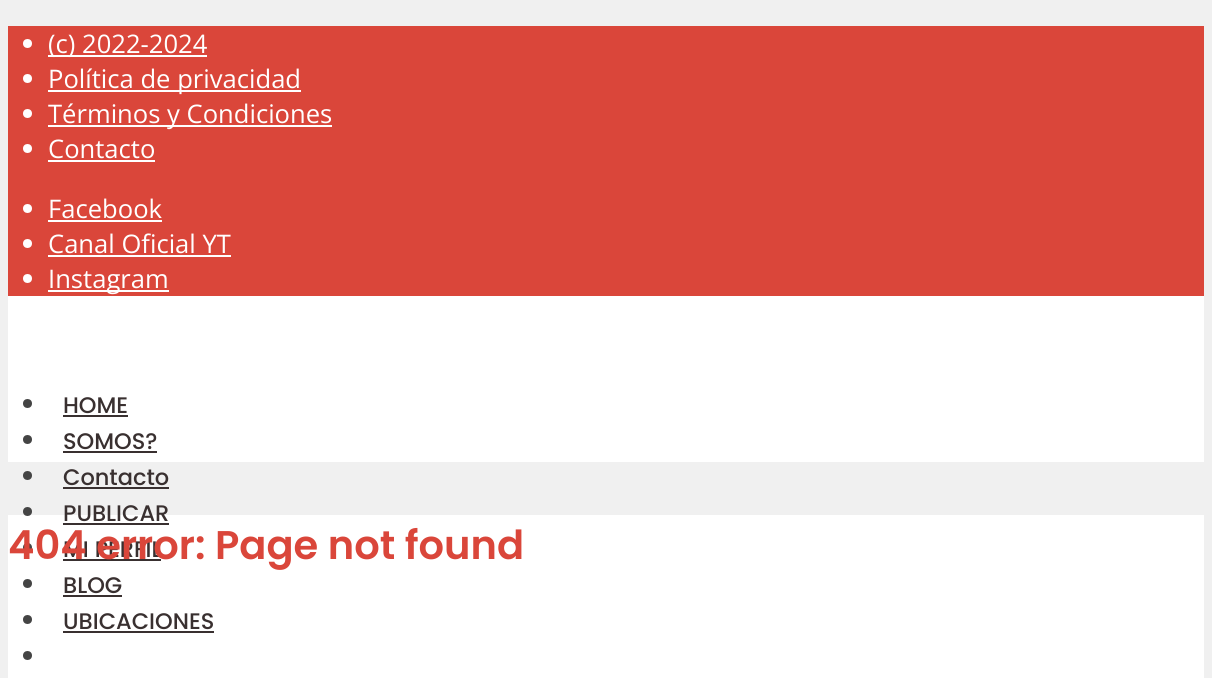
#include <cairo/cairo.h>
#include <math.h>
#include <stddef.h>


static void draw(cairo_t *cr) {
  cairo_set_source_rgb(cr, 240 / 255.0, 240 / 255.0, 240 / 255.0);
  cairo_paint(cr);
  cairo_set_source_rgb(cr, 1, 1, 1);
  cairo_rectangle(cr, 8, 296, 1196, 166);
  cairo_fill(cr);
  cairo_set_source_rgb(cr, 218 / 255.0, 70 / 255.0, 58 / 255.0);
  cairo_rectangle(cr, 8, 26, 1196, 270);
  cairo_fill(cr);
  cairo_set_source_rgb(cr, 1, 1, 1);
  cairo_arc(cr, 27.5, 43.5, 4.5, 0, 2 * M_PI);
  cairo_fill(cr);
  cairo_rectangle(cr, 48, 55, 159, 2);
  cairo_fill(cr);
  cairo_arc(cr, 27.5, 78.5, 4.5, 0, 2 * M_PI);
  cairo_fill(cr);
  cairo_rectangle(cr, 48, 90, 253, 2);
  cairo_fill(cr);
  cairo_arc(cr, 27.5, 113.5, 4.5, 0, 2 * M_PI);
  cairo_fill(cr);
  cairo_rectangle(cr, 48, 125, 284, 2);
  cairo_fill(cr);
  cairo_arc(cr, 27.5, 148.5, 4.5, 0, 2 * M_PI);
  cairo_fill(cr);
  cairo_rectangle(cr, 48, 160, 107, 2);
  cairo_fill(cr);
  cairo_arc(cr, 27.5, 208.5, 4.5, 0, 2 * M_PI);
  cairo_fill(cr);
  cairo_rectangle(cr, 48, 220, 114, 2);
  cairo_fill(cr);
  cairo_arc(cr, 27.5, 243.5, 4.5, 0, 2 * M_PI);
  cairo_fill(cr);
  cairo_rectangle(cr, 48, 255, 183, 2);
  cairo_fill(cr);
  cairo_arc(cr, 27.5, 278.5, 4.5, 0, 2 * M_PI);
  cairo_fill(cr);
  cairo_rectangle(cr, 48, 290, 121, 2);
  cairo_fill(cr);
  cairo_set_source_rgb(cr, 68 / 255.0, 68 / 255.0, 68 / 255.0);
  cairo_arc(cr, 27.5, 403.5, 4.5, 0, 2 * M_PI);
  cairo_fill(cr);
  cairo_set_source_rgb(cr, 57 / 255.0, 48 / 255.0, 48 / 255.0);
  cairo_rectangle(cr, 63, 415, 65, 2);
  cairo_fill(cr);
  cairo_set_source_rgb(cr, 68 / 255.0, 68 / 255.0, 68 / 255.0);
  cairo_arc(cr, 27.5, 439.5, 4.5, 0, 2 * M_PI);
  cairo_fill(cr);
  cairo_set_source_rgb(cr, 57 / 255.0, 48 / 255.0, 48 / 255.0);
  cairo_rectangle(cr, 63, 451, 94, 2);
  cairo_fill(cr);
  cairo_set_source_rgb(cr, 68 / 255.0, 68 / 255.0, 68 / 255.0);
  cairo_arc(cr, 27.5, 475.5, 4.5, 0, 2 * M_PI);
  cairo_fill(cr);
  cairo_set_source_rgb(cr, 57 / 255.0, 48 / 255.0, 48 / 255.0);
  cairo_rectangle(cr, 63, 487, 106, 2);
  cairo_fill(cr);
  cairo_set_source_rgb(cr, 1, 1, 1);
  cairo_rectangle(cr, 8, 515, 1196, 163);
  cairo_fill(cr);
  cairo_set_source_rgb(cr, 68 / 255.0, 68 / 255.0, 68 / 255.0);
  cairo_arc(cr, 27.5, 511.5, 4.5, 0, 2 * M_PI);
  cairo_fill(cr);
  cairo_set_source_rgb(cr, 57 / 255.0, 48 / 255.0, 48 / 255.0);
  cairo_rectangle(cr, 63, 523, 106, 2);
  cairo_fill(cr);
  cairo_set_source_rgb(cr, 68 / 255.0, 68 / 255.0, 68 / 255.0);
  cairo_arc(cr, 27.5, 547.5, 4.5, 0, 2 * M_PI);
  cairo_fill(cr);
  cairo_set_source_rgb(cr, 57 / 255.0, 48 / 255.0, 48 / 255.0);
  cairo_rectangle(cr, 63, 559, 98, 2);
  cairo_fill(cr);
  cairo_set_source_rgb(cr, 68 / 255.0, 68 / 255.0, 68 / 255.0);
  cairo_arc(cr, 27.5, 583.5, 4.5, 0, 2 * M_PI);
  cairo_fill(cr);
  cairo_set_source_rgb(cr, 57 / 255.0, 48 / 255.0, 48 / 255.0);
  cairo_rectangle(cr, 63, 595, 59, 2);
  cairo_fill(cr);
  cairo_set_source_rgb(cr, 68 / 255.0, 68 / 255.0, 68 / 255.0);
  cairo_arc(cr, 27.5, 619.5, 4.5, 0, 2 * M_PI);
  cairo_fill(cr);
  cairo_set_source_rgb(cr, 57 / 255.0, 48 / 255.0, 48 / 255.0);
  cairo_rectangle(cr, 63, 631, 151, 2);
  cairo_fill(cr);
  cairo_set_source_rgb(cr, 68 / 255.0, 68 / 255.0, 68 / 255.0);
  cairo_arc(cr, 27.5, 655.5, 4.5, 0, 2 * M_PI);
  cairo_fill(cr);
  cairo_select_font_face(cr, "Open Sans", CAIRO_FONT_SLANT_NORMAL, CAIRO_FONT_WEIGHT_NORMAL);
  cairo_set_font_size(cr, 25.6);
  cairo_set_source_rgb(cr, 1, 1, 1);
  cairo_move_to(cr, 48, 53);
  cairo_show_text(cr, "(c) 2022-2024");
  cairo_move_to(cr, 48, 88);
  cairo_show_text(cr, "Política de privacidad");
  cairo_move_to(cr, 48, 123);
  cairo_show_text(cr, "Términos y Condiciones");
  cairo_move_to(cr, 48, 158);
  cairo_show_text(cr, "Contacto");
  cairo_move_to(cr, 48, 218);
  cairo_show_text(cr, "Facebook");
  cairo_move_to(cr, 48, 253);
  cairo_show_text(cr, "Canal Oficial YT");
  cairo_move_to(cr, 48, 288);
  cairo_show_text(cr, "Instagram");
  cairo_select_font_face(cr, "Poppins Medium", CAIRO_FONT_SLANT_NORMAL, CAIRO_FONT_WEIGHT_NORMAL);
  cairo_set_font_size(cr, 22.5);
  cairo_set_source_rgb(cr, 57 / 255.0, 48 / 255.0, 48 / 255.0);
  cairo_move_to(cr, 63, 413);
  cairo_show_text(cr, "HOME");
  cairo_move_to(cr, 63, 449);
  cairo_show_text(cr, "SOMOS?");
  cairo_move_to(cr, 63, 485);
  cairo_show_text(cr, "Contacto");
  cairo_move_to(cr, 63, 521);
  cairo_show_text(cr, "PUBLICAR");
  cairo_move_to(cr, 63, 557);
  cairo_show_text(cr, "MI PERFIL");
  cairo_move_to(cr, 63, 593);
  cairo_show_text(cr, "BLOG");
  cairo_move_to(cr, 63, 629);
  cairo_show_text(cr, "UBICACIONES");
  cairo_select_font_face(cr, "Poppins SemiBold", CAIRO_FONT_SLANT_NORMAL, CAIRO_FONT_WEIGHT_NORMAL);
  cairo_set_font_size(cr, 40);
  cairo_set_source_rgb(cr, 218 / 255.0, 70 / 255.0, 58 / 255.0);
  cairo_move_to(cr, 8, 559);
  cairo_show_text(cr, "404 error: Page not found");
}

int main(void) {
  cairo_surface_t *surface = cairo_image_surface_create(CAIRO_FORMAT_RGB24, 1212, 678);
  cairo_t *cr = cairo_create(surface);
  cairo_font_options_t *options = cairo_font_options_create();
  cairo_font_options_set_hint_metrics(options, CAIRO_HINT_METRICS_OFF);
  cairo_font_options_set_hint_style(options, CAIRO_HINT_STYLE_NONE);
  cairo_set_font_options(cr, options);
  cairo_set_miter_limit(cr, 4);
  draw(cr);
  cairo_surface_write_to_png(surface, "out.png");
  cairo_font_options_destroy(options);
  cairo_destroy(cr);
  cairo_surface_destroy(surface);
  return 0;
}
